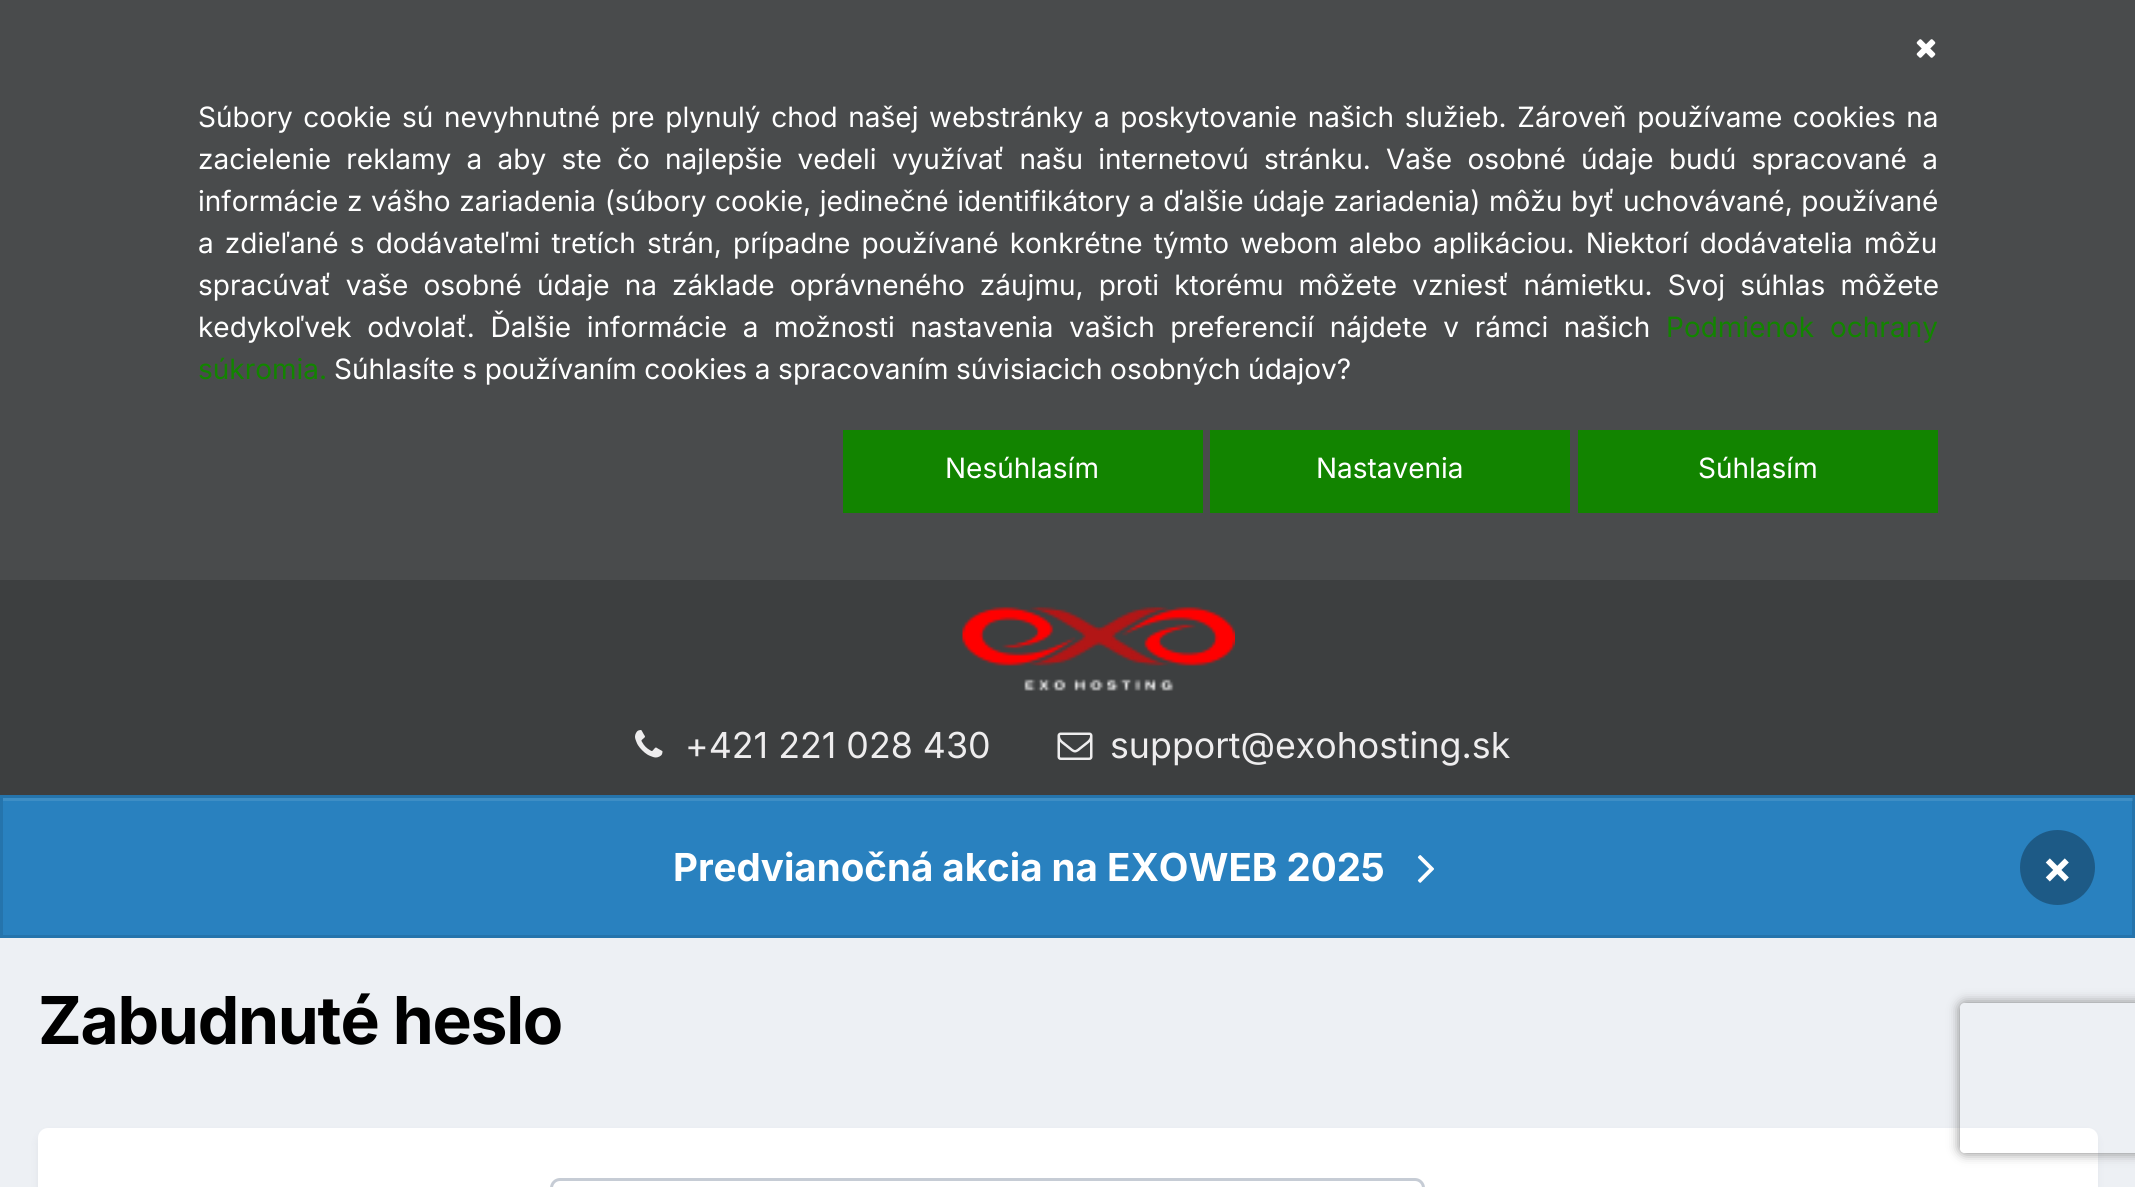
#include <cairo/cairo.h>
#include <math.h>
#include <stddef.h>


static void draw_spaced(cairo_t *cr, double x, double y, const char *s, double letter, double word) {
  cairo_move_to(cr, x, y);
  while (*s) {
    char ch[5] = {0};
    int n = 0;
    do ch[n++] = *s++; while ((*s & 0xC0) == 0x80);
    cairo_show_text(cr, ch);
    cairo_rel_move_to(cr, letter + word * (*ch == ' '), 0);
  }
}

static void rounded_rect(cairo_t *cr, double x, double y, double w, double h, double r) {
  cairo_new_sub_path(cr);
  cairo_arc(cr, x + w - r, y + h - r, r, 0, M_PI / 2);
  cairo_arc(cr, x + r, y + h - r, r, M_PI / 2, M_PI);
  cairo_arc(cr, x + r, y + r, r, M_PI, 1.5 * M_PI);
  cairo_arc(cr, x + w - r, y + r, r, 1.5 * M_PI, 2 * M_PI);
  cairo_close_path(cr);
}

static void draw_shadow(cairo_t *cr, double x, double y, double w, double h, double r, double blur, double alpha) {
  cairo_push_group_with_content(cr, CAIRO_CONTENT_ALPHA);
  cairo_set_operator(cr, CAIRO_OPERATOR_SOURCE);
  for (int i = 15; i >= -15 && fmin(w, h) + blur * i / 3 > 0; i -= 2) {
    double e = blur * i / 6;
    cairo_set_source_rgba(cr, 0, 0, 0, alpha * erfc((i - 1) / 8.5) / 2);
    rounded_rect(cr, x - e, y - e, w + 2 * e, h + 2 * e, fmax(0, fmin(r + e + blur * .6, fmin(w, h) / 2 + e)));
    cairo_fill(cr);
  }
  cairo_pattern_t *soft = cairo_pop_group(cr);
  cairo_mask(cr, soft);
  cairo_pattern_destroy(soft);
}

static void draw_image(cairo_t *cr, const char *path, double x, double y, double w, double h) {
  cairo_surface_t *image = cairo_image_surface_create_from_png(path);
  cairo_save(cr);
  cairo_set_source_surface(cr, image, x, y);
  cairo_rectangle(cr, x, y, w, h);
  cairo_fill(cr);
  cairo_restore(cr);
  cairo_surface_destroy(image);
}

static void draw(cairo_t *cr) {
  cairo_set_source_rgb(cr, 237 / 255.0, 240 / 255.0, 244 / 255.0);
  cairo_paint(cr);
  cairo_set_source_rgb(cr, 73 / 255.0, 75 / 255.0, 76 / 255.0);
  cairo_rectangle(cr, 0, 0, 2135, 580);
  cairo_fill(cr);
  draw_image(cr, "images/1.png", 1916, 39, 20, 19);
  cairo_set_source_rgb(cr, 18 / 255.0, 132 / 255.0, 0);
  cairo_rectangle(cr, 843, 430, 360, 83);
  cairo_fill(cr);
  cairo_rectangle(cr, 1210, 430, 360, 83);
  cairo_fill(cr);
  cairo_rectangle(cr, 1578, 430, 360, 83);
  cairo_fill(cr);
  cairo_set_source_rgb(cr, 61 / 255.0, 63 / 255.0, 64 / 255.0);
  cairo_rectangle(cr, 0, 580, 2135, 215);
  cairo_fill(cr);
  draw_image(cr, "images/2.png", 962, 606, 273, 85);
  draw_image(cr, "images/3.png", 635, 730, 28, 28);
  draw_image(cr, "images/4.png", 1057, 732, 36, 28);
  cairo_set_source_rgb(cr, 41 / 255.0, 129 / 255.0, 191 / 255.0);
  cairo_rectangle(cr, 0, 795, 2135, 143);
  cairo_fill(cr);
  cairo_set_source_rgb(cr, 62 / 255.0, 142 / 255.0, 197 / 255.0);
  cairo_rectangle(cr, 3, 798, 2130, 3);
  cairo_fill(cr);
  cairo_rectangle(cr, 1.5, 796.5, 2132, 140);
  cairo_set_source_rgba(cr, 0, 0, 0, 0.1);
  cairo_set_line_width(cr, 3);
  cairo_stroke(cr);
  draw_image(cr, "images/5.png", 1417, 855, 17, 28);
  cairo_set_source_rgb(cr, 29 / 255.0, 90 / 255.0, 134 / 255.0);
  cairo_arc(cr, 2057.5, 867.5, 37.5, 0, 2 * M_PI);
  cairo_fill(cr);
  cairo_set_source_rgb(cr, 45 / 255.0, 55 / 255.0, 72 / 255.0);
  draw_shadow(cr, 40, 1135, 2055, 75, 8, 5, 0.1);
  cairo_set_source_rgb(cr, 1, 1, 1);
  rounded_rect(cr, 38, 1128, 2060, 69, 10);
  cairo_fill(cr);
  cairo_save(cr);
  cairo_set_fill_rule(cr, CAIRO_FILL_RULE_EVEN_ODD);
  cairo_new_path(cr);
  cairo_move_to(cr, 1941, 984);
  cairo_line_to(cr, 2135, 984);
  cairo_line_to(cr, 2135, 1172);
  cairo_line_to(cr, 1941, 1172);
  cairo_close_path(cr);
  cairo_move_to(cr, 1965, 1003);
  cairo_line_to(cr, 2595, 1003);
  cairo_curve_to(cr, 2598, 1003, 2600, 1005, 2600, 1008);
  cairo_line_to(cr, 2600, 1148);
  cairo_curve_to(cr, 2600, 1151, 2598, 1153, 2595, 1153);
  cairo_line_to(cr, 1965, 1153);
  cairo_curve_to(cr, 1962, 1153, 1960, 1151, 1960, 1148);
  cairo_line_to(cr, 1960, 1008);
  cairo_curve_to(cr, 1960, 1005, 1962, 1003, 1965, 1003);
  cairo_close_path(cr);
  cairo_clip(cr);
  cairo_set_source_rgb(cr, 128 / 255.0, 128 / 255.0, 128 / 255.0);
  draw_shadow(cr, 1960, 1003, 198, 150, 5, 6, 1);
  cairo_restore(cr);
  rounded_rect(cr, 551.5, 1179.5, 872, 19, 8.5);
  cairo_set_source_rgb(cr, 198 / 255.0, 204 / 255.0, 213 / 255.0);
  cairo_stroke(cr);
  cairo_select_font_face(cr, "Inter", CAIRO_FONT_SLANT_NORMAL, CAIRO_FONT_WEIGHT_NORMAL);
  cairo_set_font_size(cr, 28);
  cairo_set_source_rgb(cr, 1, 1, 1);
  draw_spaced(cr, 198, 127, "Súbory cookie sú nevyhnutné pre plynulý chod našej webstránky a poskytovanie našich služieb. Zároveň používame cookies na", 0, 2.75);
  draw_spaced(cr, 198, 169, "zacielenie reklamy a aby ste čo najlepšie vedeli využívať našu internetovú stránku. Vaše osobné údaje budú spracované a", 0, 7.4);
  draw_spaced(cr, 198, 211, "informácie z vášho zariadenia (súbory cookie, jedinečné identifikátory a ďalšie údaje zariadenia) môžu byť uchovávané, používané", 0, 0.75);
  draw_spaced(cr, 198, 253, "a zdieľané s dodávateľmi tretích strán, prípadne používané konkrétne týmto webom alebo aplikáciou. Niektorí dodávatelia môžu", 0, 3.25);
  draw_spaced(cr, 198, 295, "spracúvať vaše osobné údaje na základe oprávneného záujmu, proti ktorému môžete vzniesť námietku. Svoj súhlas môžete", 0, 7.25);
  draw_spaced(cr, 198, 337, "kedykoľvek odvolať. Ďalšie informácie a možnosti nastavenia vašich preferencií nájdete v rámci našich", 0, 7.75);
  cairo_set_source_rgb(cr, 18 / 255.0, 132 / 255.0, 0);
  draw_spaced(cr, 1666, 337, "Podmienok ochrany", 0, 8);
  cairo_move_to(cr, 198, 379);
  cairo_show_text(cr, "súkromia.");
  cairo_set_source_rgb(cr, 1, 1, 1);
  draw_spaced(cr, 334, 379, "Súhlasíte s používaním cookies a spracovaním súvisiacich osobných údajov?", 0, -0.25);
  cairo_move_to(cr, 945, 478);
  cairo_show_text(cr, "Nesúhlasím");
  cairo_move_to(cr, 1316, 478);
  cairo_show_text(cr, "Nastavenia");
  cairo_move_to(cr, 1698, 478);
  cairo_show_text(cr, "Súhlasím");
  cairo_set_font_size(cr, 35.75);
  cairo_set_source_rgb(cr, 238 / 255.0, 237 / 255.0, 238 / 255.0);
  cairo_move_to(cr, 685, 758);
  cairo_show_text(cr, "+421 221 028 430");
  cairo_move_to(cr, 1110, 758);
  cairo_show_text(cr, "support@exohosting.sk");
  cairo_select_font_face(cr, "Inter", CAIRO_FONT_SLANT_NORMAL, CAIRO_FONT_WEIGHT_BOLD);
  cairo_set_font_size(cr, 38.5);
  cairo_set_source_rgb(cr, 1, 1, 1);
  cairo_move_to(cr, 673, 881);
  cairo_show_text(cr, "Predvianočná akcia na EXOWEB 2025");
  cairo_set_font_size(cr, 45);
  cairo_move_to(cr, 2042, 883);
  cairo_show_text(cr, "×");
  cairo_set_font_size(cr, 66);
  cairo_set_source_rgb(cr, 0, 0, 0);
  draw_spaced(cr, 38, 1044, "Zabudnuté heslo", -1.3, 0);
}

int main(void) {
  cairo_surface_t *surface = cairo_image_surface_create(CAIRO_FORMAT_RGB24, 2135, 1187);
  cairo_t *cr = cairo_create(surface);
  cairo_font_options_t *options = cairo_font_options_create();
  cairo_font_options_set_hint_metrics(options, CAIRO_HINT_METRICS_OFF);
  cairo_font_options_set_hint_style(options, CAIRO_HINT_STYLE_NONE);
  cairo_set_font_options(cr, options);
  cairo_set_miter_limit(cr, 4);
  draw(cr);
  cairo_surface_write_to_png(surface, "out.png");
  cairo_font_options_destroy(options);
  cairo_destroy(cr);
  cairo_surface_destroy(surface);
  return 0;
}
